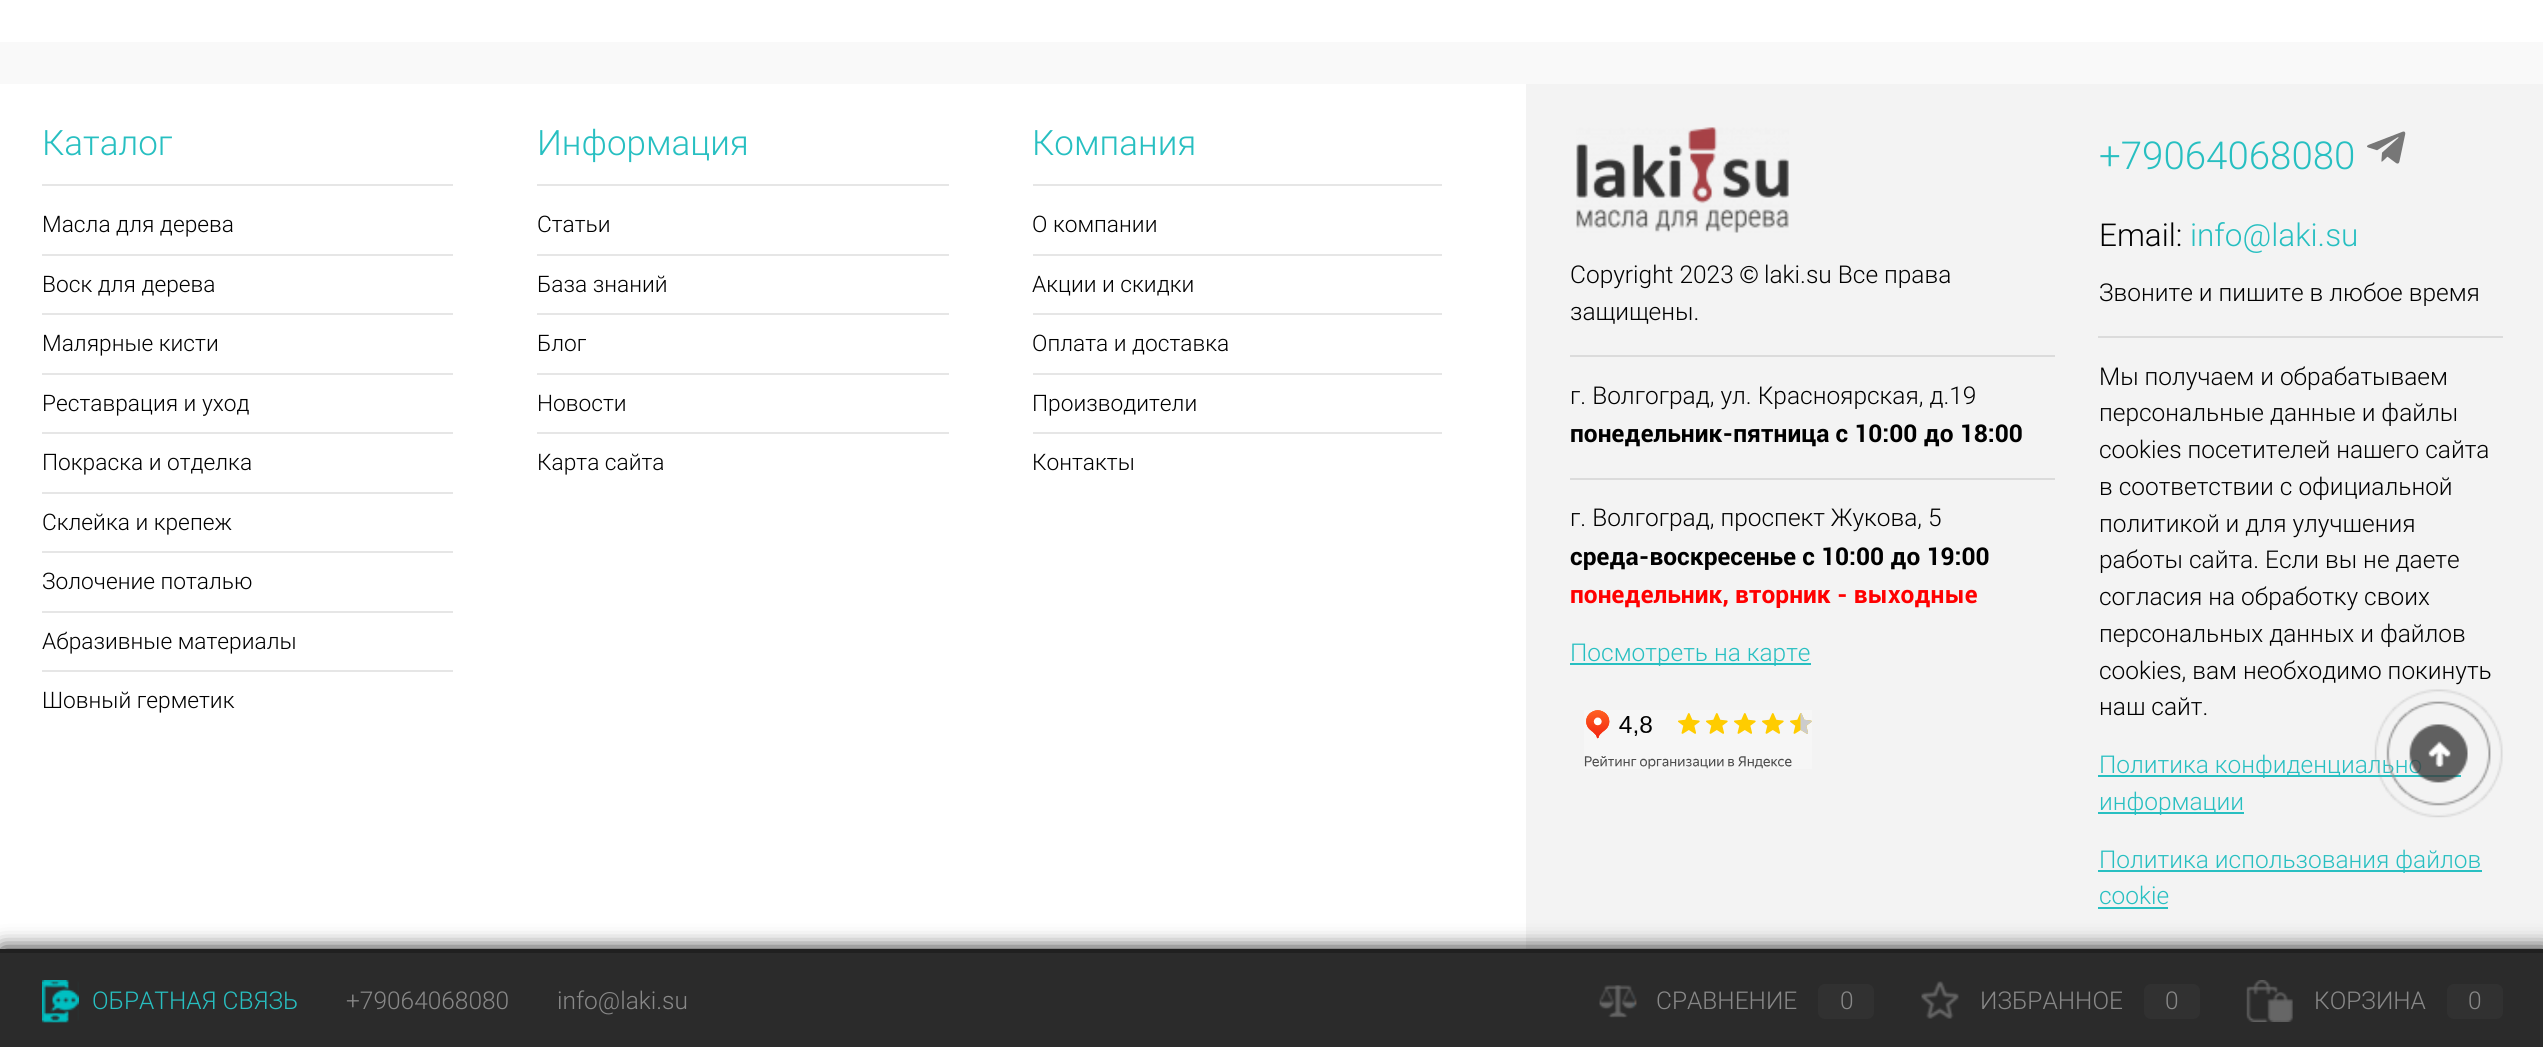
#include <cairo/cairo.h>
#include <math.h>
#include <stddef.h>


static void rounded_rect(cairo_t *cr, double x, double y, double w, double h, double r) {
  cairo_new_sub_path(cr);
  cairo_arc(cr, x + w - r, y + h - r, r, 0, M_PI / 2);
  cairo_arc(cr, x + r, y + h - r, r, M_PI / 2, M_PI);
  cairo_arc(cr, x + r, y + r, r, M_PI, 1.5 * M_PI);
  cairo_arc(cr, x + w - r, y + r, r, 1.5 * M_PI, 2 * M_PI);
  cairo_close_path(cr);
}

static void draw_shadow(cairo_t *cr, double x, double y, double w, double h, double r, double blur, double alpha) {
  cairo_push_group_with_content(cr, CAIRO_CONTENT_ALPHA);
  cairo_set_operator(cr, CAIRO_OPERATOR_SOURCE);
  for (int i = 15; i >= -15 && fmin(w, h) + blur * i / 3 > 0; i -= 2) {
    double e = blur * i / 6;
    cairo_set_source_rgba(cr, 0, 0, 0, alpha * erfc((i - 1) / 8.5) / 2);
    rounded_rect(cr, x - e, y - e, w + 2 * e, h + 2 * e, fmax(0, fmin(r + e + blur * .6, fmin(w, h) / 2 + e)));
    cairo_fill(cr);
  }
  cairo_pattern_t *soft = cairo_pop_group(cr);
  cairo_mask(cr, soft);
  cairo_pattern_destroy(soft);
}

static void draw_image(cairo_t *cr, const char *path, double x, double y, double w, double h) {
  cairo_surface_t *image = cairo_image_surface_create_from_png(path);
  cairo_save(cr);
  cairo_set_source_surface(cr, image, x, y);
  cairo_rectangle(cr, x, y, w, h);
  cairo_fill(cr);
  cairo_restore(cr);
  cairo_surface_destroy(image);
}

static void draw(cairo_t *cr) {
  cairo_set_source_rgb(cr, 1, 1, 1);
  cairo_paint(cr);
  cairo_set_source_rgb(cr, 249 / 255.0, 249 / 255.0, 249 / 255.0);
  cairo_rectangle(cr, 0, 42, 2543, 42);
  cairo_fill(cr);
  cairo_set_source_rgb(cr, 230 / 255.0, 230 / 255.0, 230 / 255.0);
  cairo_rectangle(cr, 42, 184, 411, 2);
  cairo_fill(cr);
  cairo_rectangle(cr, 42, 254, 411, 2);
  cairo_fill(cr);
  cairo_rectangle(cr, 42, 313, 411, 2);
  cairo_fill(cr);
  cairo_rectangle(cr, 42, 373, 411, 2);
  cairo_fill(cr);
  cairo_rectangle(cr, 42, 432, 411, 2);
  cairo_fill(cr);
  cairo_rectangle(cr, 42, 492, 411, 2);
  cairo_fill(cr);
  cairo_rectangle(cr, 42, 551, 411, 2);
  cairo_fill(cr);
  cairo_rectangle(cr, 42, 611, 411, 2);
  cairo_fill(cr);
  cairo_rectangle(cr, 42, 670, 411, 2);
  cairo_fill(cr);
  cairo_rectangle(cr, 537, 184, 412, 2);
  cairo_fill(cr);
  cairo_rectangle(cr, 537, 254, 412, 2);
  cairo_fill(cr);
  cairo_rectangle(cr, 537, 313, 412, 2);
  cairo_fill(cr);
  cairo_rectangle(cr, 537, 373, 412, 2);
  cairo_fill(cr);
  cairo_rectangle(cr, 537, 432, 412, 2);
  cairo_fill(cr);
  cairo_rectangle(cr, 1033, 184, 409, 2);
  cairo_fill(cr);
  cairo_rectangle(cr, 1033, 254, 409, 2);
  cairo_fill(cr);
  cairo_rectangle(cr, 1033, 313, 409, 2);
  cairo_fill(cr);
  cairo_rectangle(cr, 1033, 373, 409, 2);
  cairo_fill(cr);
  cairo_rectangle(cr, 1033, 432, 409, 2);
  cairo_fill(cr);
  cairo_set_source_rgb(cr, 243 / 255.0, 243 / 255.0, 243 / 255.0);
  cairo_rectangle(cr, 1526, 84, 1017, 865);
  cairo_fill(cr);
  draw_image(cr, "images/1.png", 1576, 127, 213, 106);
  cairo_set_source_rgb(cr, 219 / 255.0, 219 / 255.0, 219 / 255.0);
  cairo_rectangle(cr, 1570, 355, 485, 2);
  cairo_fill(cr);
  cairo_rectangle(cr, 1570, 478, 485, 2);
  cairo_fill(cr);
  cairo_set_source_rgb(cr, 39 / 255.0, 191 / 255.0, 193 / 255.0);
  cairo_rectangle(cr, 1570, 663, 241, 2);
  cairo_fill(cr);
  draw_image(cr, "images/2.png", 1584, 710, 228, 59);
  draw_image(cr, "images/3.png", 2367, 131, 39, 33);
  cairo_set_source_rgb(cr, 219 / 255.0, 219 / 255.0, 219 / 255.0);
  cairo_rectangle(cr, 2098, 336, 405, 2);
  cairo_fill(cr);
  cairo_set_source_rgb(cr, 39 / 255.0, 191 / 255.0, 193 / 255.0);
  cairo_rectangle(cr, 2098, 775, 363, 2);
  cairo_fill(cr);
  cairo_rectangle(cr, 2098, 812, 146, 2);
  cairo_fill(cr);
  cairo_rectangle(cr, 2098, 870, 384, 2);
  cairo_fill(cr);
  cairo_rectangle(cr, 2098, 907, 70, 2);
  cairo_fill(cr);
  cairo_set_source_rgb(cr, 0, 0, 0);
  draw_shadow(cr, 2, 950, 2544, 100, 0, 10.5, 1);
  cairo_set_source_rgb(cr, 43 / 255.0, 43 / 255.0, 43 / 255.0);
  cairo_rectangle(cr, 0, 953, 2543, 94);
  cairo_fill(cr);
  cairo_set_source_rgb(cr, 32 / 255.0, 32 / 255.0, 32 / 255.0);
  cairo_rectangle(cr, 0, 949, 2543, 4);
  cairo_fill(cr);
  draw_image(cr, "images/4.png", 42, 980, 37, 43);
  draw_image(cr, "images/5.png", 1599, 985, 38, 33);
  cairo_set_source_rgb(cr, 49 / 255.0, 49 / 255.0, 49 / 255.0);
  rounded_rect(cr, 1818, 984, 56, 35, 7);
  cairo_fill(cr);
  draw_image(cr, "images/6.png", 1921, 981, 38, 38);
  rounded_rect(cr, 2144, 984, 56, 35, 7);
  cairo_fill(cr);
  draw_image(cr, "images/7.png", 2246, 980, 47, 42);
  rounded_rect(cr, 2447, 984, 56, 35, 7);
  cairo_fill(cr);
  cairo_select_font_face(cr, "Roboto Light", CAIRO_FONT_SLANT_NORMAL, CAIRO_FONT_WEIGHT_NORMAL);
  cairo_set_font_size(cr, 35);
  cairo_set_source_rgb(cr, 39 / 255.0, 191 / 255.0, 193 / 255.0);
  cairo_move_to(cr, 42, 155);
  cairo_show_text(cr, "Каталог");
  cairo_set_font_size(cr, 22.75);
  cairo_set_source_rgb(cr, 0, 0, 0);
  cairo_move_to(cr, 42, 232);
  cairo_show_text(cr, "Масла для дерева");
  cairo_move_to(cr, 42, 292);
  cairo_show_text(cr, "Воск для дерева");
  cairo_move_to(cr, 42, 351);
  cairo_show_text(cr, "Малярные кисти");
  cairo_move_to(cr, 42, 411);
  cairo_show_text(cr, "Реставрация и уход");
  cairo_move_to(cr, 42, 470);
  cairo_show_text(cr, "Покраска и отделка");
  cairo_move_to(cr, 42, 530);
  cairo_show_text(cr, "Склейка и крепеж");
  cairo_move_to(cr, 42, 589);
  cairo_show_text(cr, "Золочение поталью");
  cairo_move_to(cr, 42, 649);
  cairo_show_text(cr, "Абразивные материалы");
  cairo_move_to(cr, 42, 708);
  cairo_show_text(cr, "Шовный герметик");
  cairo_set_font_size(cr, 35);
  cairo_set_source_rgb(cr, 39 / 255.0, 191 / 255.0, 193 / 255.0);
  cairo_move_to(cr, 537, 155);
  cairo_show_text(cr, "Информация");
  cairo_set_font_size(cr, 22.75);
  cairo_set_source_rgb(cr, 0, 0, 0);
  cairo_move_to(cr, 537, 232);
  cairo_show_text(cr, "Статьи");
  cairo_move_to(cr, 537, 292);
  cairo_show_text(cr, "База знаний");
  cairo_move_to(cr, 537, 351);
  cairo_show_text(cr, "Блог");
  cairo_move_to(cr, 537, 411);
  cairo_show_text(cr, "Новости");
  cairo_move_to(cr, 537, 470);
  cairo_show_text(cr, "Карта сайта");
  cairo_set_font_size(cr, 35);
  cairo_set_source_rgb(cr, 39 / 255.0, 191 / 255.0, 193 / 255.0);
  cairo_move_to(cr, 1032, 155);
  cairo_show_text(cr, "Компания");
  cairo_set_font_size(cr, 22.75);
  cairo_set_source_rgb(cr, 0, 0, 0);
  cairo_move_to(cr, 1032, 232);
  cairo_show_text(cr, "О компании");
  cairo_move_to(cr, 1032, 292);
  cairo_show_text(cr, "Акции и скидки");
  cairo_move_to(cr, 1032, 351);
  cairo_show_text(cr, "Оплата и доставка");
  cairo_move_to(cr, 1032, 411);
  cairo_show_text(cr, "Производители");
  cairo_move_to(cr, 1032, 470);
  cairo_show_text(cr, "Контакты");
  cairo_set_font_size(cr, 24.5);
  cairo_move_to(cr, 1570, 283);
  cairo_show_text(cr, "Copyright 2023");
  cairo_select_font_face(cr, "Liberation Sans", CAIRO_FONT_SLANT_NORMAL, CAIRO_FONT_WEIGHT_NORMAL);
  cairo_move_to(cr, 1740, 283);
  cairo_show_text(cr, "©");
  cairo_select_font_face(cr, "Roboto Light", CAIRO_FONT_SLANT_NORMAL, CAIRO_FONT_WEIGHT_NORMAL);
  cairo_move_to(cr, 1764, 283);
  cairo_show_text(cr, "laki.su Все права");
  cairo_move_to(cr, 1570, 320);
  cairo_show_text(cr, "защищены.");
  cairo_move_to(cr, 1570, 404);
  cairo_show_text(cr, "г. Волгоград, ул. Красноярская, д.19");
  cairo_select_font_face(cr, "Roboto", CAIRO_FONT_SLANT_NORMAL, CAIRO_FONT_WEIGHT_BOLD);
  cairo_move_to(cr, 1570, 442);
  cairo_show_text(cr, "понедельник-пятница с 10:00 до 18:00");
  cairo_select_font_face(cr, "Roboto Light", CAIRO_FONT_SLANT_NORMAL, CAIRO_FONT_WEIGHT_NORMAL);
  cairo_move_to(cr, 1570, 526);
  cairo_show_text(cr, "г. Волгоград, проспект Жукова, 5");
  cairo_select_font_face(cr, "Roboto", CAIRO_FONT_SLANT_NORMAL, CAIRO_FONT_WEIGHT_BOLD);
  cairo_move_to(cr, 1570, 565);
  cairo_show_text(cr, "среда-воскресенье с 10:00 до 19:00");
  cairo_set_source_rgb(cr, 1, 0, 0);
  cairo_move_to(cr, 1570, 603);
  cairo_show_text(cr, "понедельник, вторник - выходные");
  cairo_select_font_face(cr, "Roboto Light", CAIRO_FONT_SLANT_NORMAL, CAIRO_FONT_WEIGHT_NORMAL);
  cairo_set_source_rgb(cr, 39 / 255.0, 191 / 255.0, 193 / 255.0);
  cairo_move_to(cr, 1570, 661);
  cairo_show_text(cr, "Посмотреть на карте");
  cairo_set_font_size(cr, 38.5);
  cairo_move_to(cr, 2099, 169);
  cairo_show_text(cr, "+79064068080");
  cairo_set_font_size(cr, 31.5);
  cairo_set_source_rgb(cr, 0, 0, 0);
  cairo_move_to(cr, 2099, 246);
  cairo_show_text(cr, "Email:");
  cairo_set_source_rgb(cr, 39 / 255.0, 191 / 255.0, 193 / 255.0);
  cairo_move_to(cr, 2190, 246);
  cairo_show_text(cr, "info@laki.su");
  cairo_set_font_size(cr, 24.5);
  cairo_set_source_rgb(cr, 0, 0, 0);
  cairo_move_to(cr, 2099, 301);
  cairo_show_text(cr, "Звоните и пишите в любое время");
  cairo_move_to(cr, 2099, 385);
  cairo_show_text(cr, "Мы получаем и обрабатываем");
  cairo_move_to(cr, 2099, 421);
  cairo_show_text(cr, "персональные данные и файлы");
  cairo_move_to(cr, 2099, 458);
  cairo_show_text(cr, "cookies посетителей нашего сайта");
  cairo_move_to(cr, 2099, 495);
  cairo_show_text(cr, "в соответствии с официальной");
  cairo_move_to(cr, 2099, 532);
  cairo_show_text(cr, "политикой и для улучшения");
  cairo_move_to(cr, 2099, 568);
  cairo_show_text(cr, "работы сайта. Если вы не даете");
  cairo_move_to(cr, 2099, 605);
  cairo_show_text(cr, "согласия на обработку своих");
  cairo_move_to(cr, 2099, 642);
  cairo_show_text(cr, "персональных данных и файлов");
  cairo_move_to(cr, 2099, 679);
  cairo_show_text(cr, "cookies, вам необходимо покинуть");
  cairo_move_to(cr, 2099, 715);
  cairo_show_text(cr, "наш сайт.");
  cairo_set_source_rgb(cr, 39 / 255.0, 191 / 255.0, 193 / 255.0);
  cairo_move_to(cr, 2099, 773);
  cairo_show_text(cr, "Политика конфиденциально");
  cairo_move_to(cr, 2099, 810);
  cairo_show_text(cr, "информации");
  cairo_move_to(cr, 2099, 868);
  cairo_show_text(cr, "Политика использования файлов");
  cairo_move_to(cr, 2099, 904);
  cairo_show_text(cr, "cookie");
  cairo_move_to(cr, 92, 1009);
  cairo_show_text(cr, "ОБРАТНАЯ СВЯЗЬ");
  cairo_set_source_rgb(cr, 136 / 255.0, 136 / 255.0, 136 / 255.0);
  cairo_move_to(cr, 346, 1009);
  cairo_show_text(cr, "+79064068080");
  cairo_move_to(cr, 557, 1009);
  cairo_show_text(cr, "info@laki.su");
  cairo_move_to(cr, 1656, 1009);
  cairo_show_text(cr, "СРАВНЕНИЕ");
  cairo_move_to(cr, 1840, 1009);
  cairo_show_text(cr, "0");
  cairo_move_to(cr, 1980, 1009);
  cairo_show_text(cr, "ИЗБРАННОЕ");
  cairo_move_to(cr, 2165, 1009);
  cairo_show_text(cr, "0");
  cairo_move_to(cr, 2314, 1009);
  cairo_show_text(cr, "КОРЗИНА");
  cairo_move_to(cr, 2468, 1009);
  cairo_show_text(cr, "0");
  draw_image(cr, "images/8.png", 2374, 689, 129, 129);
}

int main(void) {
  cairo_surface_t *surface = cairo_image_surface_create(CAIRO_FORMAT_RGB24, 2543, 1047);
  cairo_t *cr = cairo_create(surface);
  cairo_font_options_t *options = cairo_font_options_create();
  cairo_font_options_set_hint_metrics(options, CAIRO_HINT_METRICS_OFF);
  cairo_font_options_set_hint_style(options, CAIRO_HINT_STYLE_NONE);
  cairo_set_font_options(cr, options);
  cairo_set_miter_limit(cr, 4);
  draw(cr);
  cairo_surface_write_to_png(surface, "out.png");
  cairo_font_options_destroy(options);
  cairo_destroy(cr);
  cairo_surface_destroy(surface);
  return 0;
}
